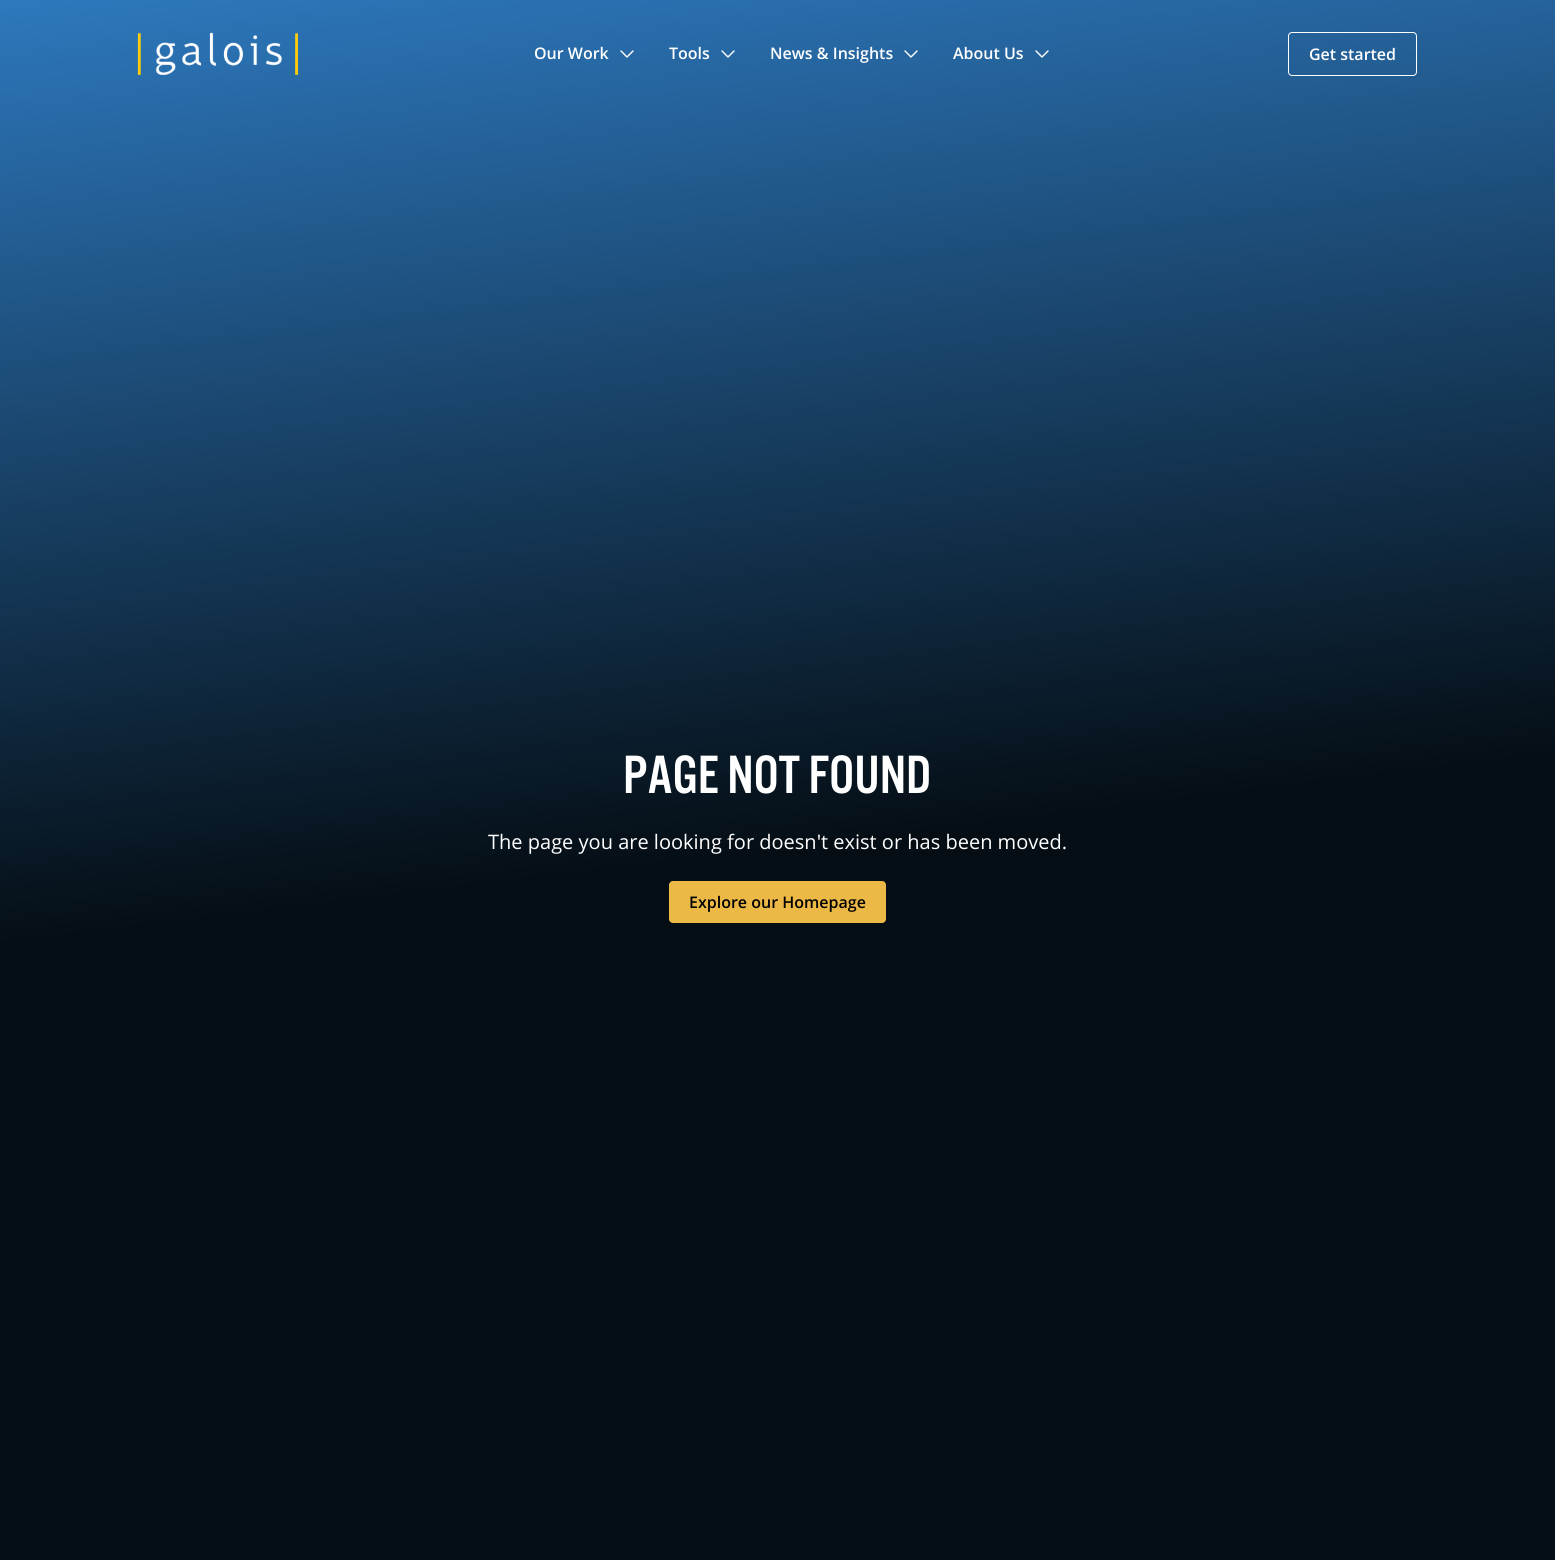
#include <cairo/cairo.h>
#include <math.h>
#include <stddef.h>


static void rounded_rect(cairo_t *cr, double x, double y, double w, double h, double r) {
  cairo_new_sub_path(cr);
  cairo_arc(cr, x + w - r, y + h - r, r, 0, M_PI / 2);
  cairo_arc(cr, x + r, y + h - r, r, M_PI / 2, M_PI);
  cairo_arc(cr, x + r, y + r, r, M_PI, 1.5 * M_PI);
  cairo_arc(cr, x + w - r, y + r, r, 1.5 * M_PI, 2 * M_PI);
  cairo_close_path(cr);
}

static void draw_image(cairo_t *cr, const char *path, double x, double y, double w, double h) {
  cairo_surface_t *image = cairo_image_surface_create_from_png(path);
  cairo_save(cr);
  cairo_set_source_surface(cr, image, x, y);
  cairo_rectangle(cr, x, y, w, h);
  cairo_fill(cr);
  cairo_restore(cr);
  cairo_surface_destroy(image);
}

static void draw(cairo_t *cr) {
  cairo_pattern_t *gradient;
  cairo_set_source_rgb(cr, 1, 1, 1);
  cairo_paint(cr);
  gradient = cairo_pattern_create_linear(672, -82, 883, 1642);
  cairo_pattern_add_color_stop_rgba(gradient, 0, 45 / 255.0, 120 / 255.0, 189 / 255.0, 1);
  cairo_pattern_add_color_stop_rgba(gradient, 0.54, 5 / 255.0, 14 / 255.0, 21 / 255.0, 1);
  cairo_pattern_add_color_stop_rgba(gradient, 1, 5 / 255.0, 14 / 255.0, 21 / 255.0, 1);
  cairo_set_source(cr, gradient);
  cairo_pattern_destroy(gradient);
  cairo_rectangle(cr, 0, 0, 1555, 1560);
  cairo_fill(cr);
  draw_image(cr, "images/1.png", 137, 32, 161, 43);
  cairo_new_path(cr);
  cairo_move_to(cr, 621, 51);
  cairo_line_to(cr, 627, 57);
  cairo_line_to(cr, 633, 51);
  cairo_set_source_rgb(cr, 1, 1, 1);
  cairo_set_line_width(cr, 1.4);
  cairo_set_line_cap(cr, CAIRO_LINE_CAP_ROUND);
  cairo_set_line_join(cr, CAIRO_LINE_JOIN_ROUND);
  cairo_stroke(cr);
  cairo_new_path(cr);
  cairo_move_to(cr, 722, 51);
  cairo_line_to(cr, 728, 57);
  cairo_line_to(cr, 734, 51);
  cairo_stroke(cr);
  cairo_new_path(cr);
  cairo_move_to(cr, 905, 51);
  cairo_line_to(cr, 911, 57);
  cairo_line_to(cr, 917, 51);
  cairo_stroke(cr);
  cairo_new_path(cr);
  cairo_move_to(cr, 1036, 51);
  cairo_line_to(cr, 1042, 57);
  cairo_line_to(cr, 1048, 51);
  cairo_stroke(cr);
  rounded_rect(cr, 1288.5, 32.5, 128, 43, 3.5);
  cairo_set_line_width(cr, 1);
  cairo_set_line_cap(cr, CAIRO_LINE_CAP_BUTT);
  cairo_set_line_join(cr, CAIRO_LINE_JOIN_MITER);
  cairo_stroke(cr);
  cairo_set_source_rgb(cr, 237 / 255.0, 185 / 255.0, 70 / 255.0);
  rounded_rect(cr, 669, 881, 217, 42, 4);
  cairo_fill(cr);
  cairo_select_font_face(cr, "Open Sans SemiBold", CAIRO_FONT_SLANT_NORMAL, CAIRO_FONT_WEIGHT_NORMAL);
  cairo_set_font_size(cr, 16);
  cairo_set_source_rgb(cr, 1, 1, 1);
  cairo_move_to(cr, 534, 59);
  cairo_show_text(cr, "Our Work");
  cairo_move_to(cr, 669, 59);
  cairo_show_text(cr, "Tools");
  cairo_move_to(cr, 770, 59);
  cairo_show_text(cr, "News & Insights");
  cairo_move_to(cr, 953, 59);
  cairo_show_text(cr, "About Us");
  cairo_move_to(cr, 1309, 60);
  cairo_show_text(cr, "Get started");
  cairo_select_font_face(cr, "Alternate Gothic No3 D", CAIRO_FONT_SLANT_NORMAL, CAIRO_FONT_WEIGHT_NORMAL);
  cairo_set_font_size(cr, 56);
  cairo_move_to(cr, 623, 793);
  cairo_show_text(cr, "PAGE NOT FOUND");
  cairo_select_font_face(cr, "Open Sans", CAIRO_FONT_SLANT_NORMAL, CAIRO_FONT_WEIGHT_NORMAL);
  cairo_set_font_size(cr, 20);
  cairo_move_to(cr, 488, 849);
  cairo_show_text(cr, "The page you are looking for doesn't exist or has been moved.");
  cairo_select_font_face(cr, "Open Sans SemiBold", CAIRO_FONT_SLANT_NORMAL, CAIRO_FONT_WEIGHT_NORMAL);
  cairo_set_font_size(cr, 16);
  cairo_set_source_rgb(cr, 0, 0, 0);
  cairo_move_to(cr, 689, 908);
  cairo_show_text(cr, "Explore our Homepage");
}

int main(void) {
  cairo_surface_t *surface = cairo_image_surface_create(CAIRO_FORMAT_RGB24, 1555, 1560);
  cairo_t *cr = cairo_create(surface);
  cairo_font_options_t *options = cairo_font_options_create();
  cairo_font_options_set_hint_metrics(options, CAIRO_HINT_METRICS_OFF);
  cairo_font_options_set_hint_style(options, CAIRO_HINT_STYLE_NONE);
  cairo_set_font_options(cr, options);
  cairo_set_miter_limit(cr, 4);
  draw(cr);
  cairo_surface_write_to_png(surface, "out.png");
  cairo_font_options_destroy(options);
  cairo_destroy(cr);
  cairo_surface_destroy(surface);
  return 0;
}
